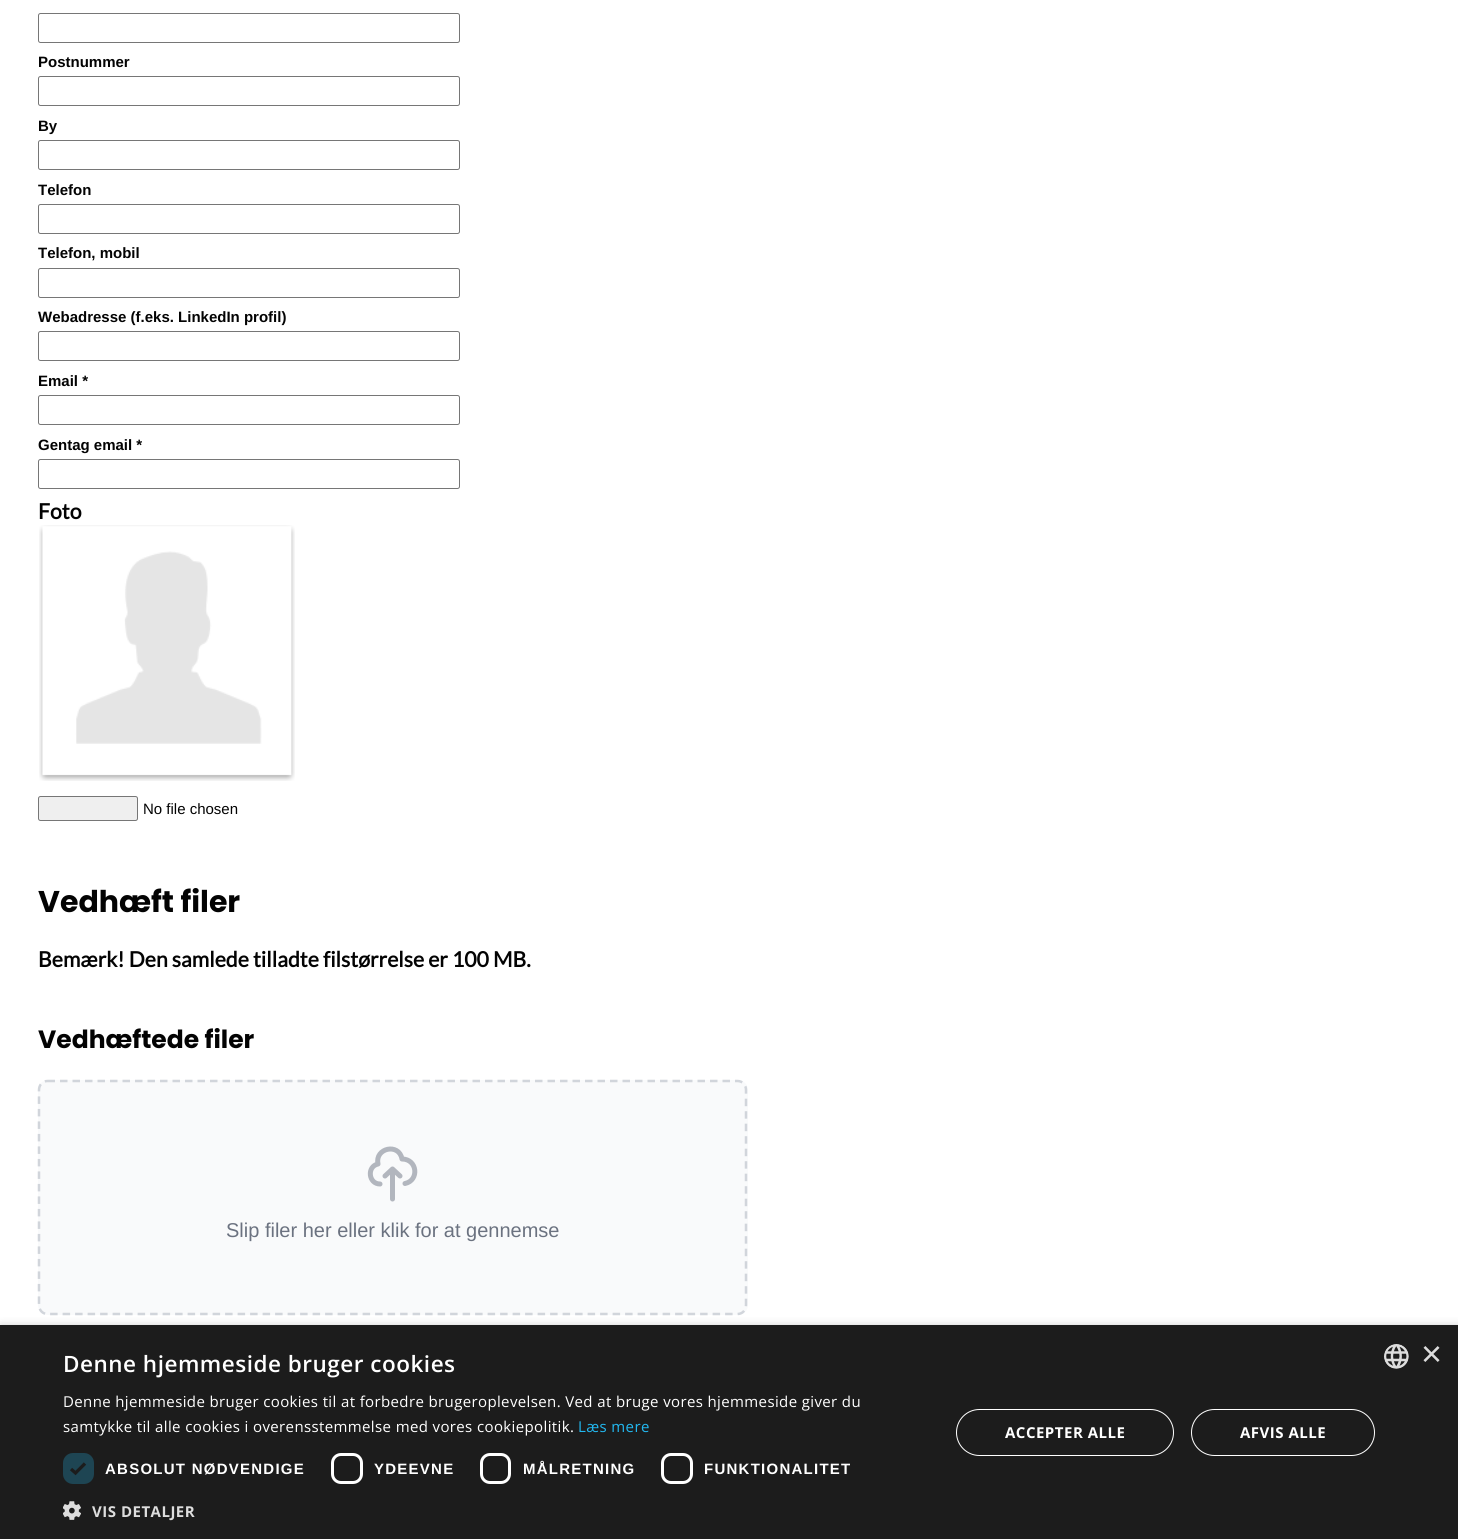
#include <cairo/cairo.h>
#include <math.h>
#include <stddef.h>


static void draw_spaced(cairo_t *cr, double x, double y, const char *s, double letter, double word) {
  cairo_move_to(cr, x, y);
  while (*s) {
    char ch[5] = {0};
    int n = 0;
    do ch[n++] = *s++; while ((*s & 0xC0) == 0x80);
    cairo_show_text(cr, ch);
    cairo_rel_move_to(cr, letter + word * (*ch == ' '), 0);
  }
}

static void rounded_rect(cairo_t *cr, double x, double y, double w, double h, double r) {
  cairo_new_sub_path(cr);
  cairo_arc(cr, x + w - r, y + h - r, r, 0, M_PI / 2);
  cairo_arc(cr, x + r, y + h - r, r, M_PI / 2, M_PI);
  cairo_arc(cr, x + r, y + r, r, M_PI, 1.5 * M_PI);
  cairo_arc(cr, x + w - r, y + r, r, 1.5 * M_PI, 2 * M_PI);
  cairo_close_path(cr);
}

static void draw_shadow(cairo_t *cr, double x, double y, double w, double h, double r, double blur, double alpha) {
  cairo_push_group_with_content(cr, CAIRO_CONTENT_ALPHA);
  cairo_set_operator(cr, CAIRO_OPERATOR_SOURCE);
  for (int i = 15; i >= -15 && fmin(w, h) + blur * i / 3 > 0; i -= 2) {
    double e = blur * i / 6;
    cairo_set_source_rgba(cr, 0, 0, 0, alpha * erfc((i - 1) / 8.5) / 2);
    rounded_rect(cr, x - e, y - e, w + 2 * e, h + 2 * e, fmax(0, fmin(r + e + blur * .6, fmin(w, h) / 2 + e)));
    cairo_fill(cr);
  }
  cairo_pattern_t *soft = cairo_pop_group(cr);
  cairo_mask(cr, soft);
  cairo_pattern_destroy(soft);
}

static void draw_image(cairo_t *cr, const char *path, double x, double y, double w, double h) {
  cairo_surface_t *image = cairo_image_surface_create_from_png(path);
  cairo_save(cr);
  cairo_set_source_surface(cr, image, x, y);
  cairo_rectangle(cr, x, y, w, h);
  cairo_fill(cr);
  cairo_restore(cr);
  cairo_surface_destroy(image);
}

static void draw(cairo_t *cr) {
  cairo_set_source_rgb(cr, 1, 1, 1);
  cairo_paint(cr);
  rounded_rect(cr, 38.5, 13.5, 421, 29, 2);
  cairo_set_source_rgb(cr, 118 / 255.0, 118 / 255.0, 118 / 255.0);
  cairo_set_line_width(cr, 1);
  cairo_stroke(cr);
  rounded_rect(cr, 38.5, 76.5, 421, 29, 2);
  cairo_stroke(cr);
  rounded_rect(cr, 38.5, 140.5, 421, 29, 2);
  cairo_stroke(cr);
  rounded_rect(cr, 38.5, 204.5, 421, 29, 2);
  cairo_stroke(cr);
  rounded_rect(cr, 38.5, 268.5, 421, 29, 2);
  cairo_stroke(cr);
  rounded_rect(cr, 38.5, 331.5, 421, 29, 2);
  cairo_stroke(cr);
  rounded_rect(cr, 38.5, 395.5, 421, 29, 2);
  cairo_stroke(cr);
  rounded_rect(cr, 38.5, 459.5, 421, 29, 2);
  cairo_stroke(cr);
  draw_image(cr, "images/1.png", 39, 525, 256, 256);
  cairo_set_source_rgb(cr, 239 / 255.0, 239 / 255.0, 239 / 255.0);
  rounded_rect(cr, 38.5, 796.5, 99, 24, 2);
  cairo_fill_preserve(cr);
  cairo_set_source_rgb(cr, 118 / 255.0, 118 / 255.0, 118 / 255.0);
  cairo_stroke(cr);
  cairo_set_source_rgb(cr, 249 / 255.0, 250 / 255.0, 251 / 255.0);
  rounded_rect(cr, 38, 1080, 710, 235, 10);
  cairo_fill(cr);
  cairo_new_path(cr);
  cairo_move_to(cr, 47.5, 1081);
  cairo_line_to(cr, 737.5, 1081);
  cairo_curve_to(cr, 742.5, 1081, 746, 1085, 746, 1090);
  cairo_line_to(cr, 746, 1305);
  cairo_curve_to(cr, 746, 1310, 742.5, 1314, 737.5, 1314);
  cairo_line_to(cr, 47.5, 1314);
  cairo_curve_to(cr, 42.5, 1314, 39, 1310, 39, 1305);
  cairo_line_to(cr, 39, 1090);
  cairo_curve_to(cr, 39, 1085, 42.5, 1081, 47.5, 1081);
  cairo_close_path(cr);
  cairo_set_source_rgb(cr, 209 / 255.0, 213 / 255.0, 219 / 255.0);
  cairo_set_line_width(cr, 2.5);
  cairo_set_dash(cr, (double[]){7.5, 5}, 2, 0);
  cairo_stroke(cr);
  cairo_new_path(cr);
  cairo_move_to(cr, 380, 1184);
  cairo_curve_to(cr, 368.5, 1184, 366.5, 1166.5, 378, 1164);
  cairo_curve_to(cr, 374.5, 1148, 399, 1142.5, 402, 1159);
  cairo_curve_to(cr, 417.5, 1159, 419.5, 1180.5, 405, 1183.5);
  cairo_move_to(cr, 400, 1176);
  cairo_line_to(cr, 392.5, 1169);
  cairo_move_to(cr, 392.5, 1169);
  cairo_line_to(cr, 385, 1176);
  cairo_move_to(cr, 392.5, 1169);
  cairo_line_to(cr, 392.5, 1199);
  cairo_set_source_rgb(cr, 178 / 255.0, 182 / 255.0, 190 / 255.0);
  cairo_set_line_width(cr, 5);
  cairo_set_line_cap(cr, CAIRO_LINE_CAP_ROUND);
  cairo_set_line_join(cr, CAIRO_LINE_JOIN_ROUND);
  cairo_set_dash(cr, NULL, 0, 0);
  cairo_stroke(cr);
  cairo_set_source_rgb(cr, 0, 0, 0);
  draw_shadow(cr, 1, 1328, 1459, 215, 0, 5, 0.35);
  cairo_set_source_rgb(cr, 28 / 255.0, 28 / 255.0, 28 / 255.0);
  cairo_rectangle(cr, 0, 1325, 1458, 214);
  cairo_fill(cr);
  cairo_set_source_rgb(cr, 30 / 255.0, 69 / 255.0, 83 / 255.0);
  rounded_rect(cr, 63, 1453, 31, 31, 10);
  cairo_fill(cr);
  cairo_new_path(cr);
  cairo_move_to(cr, 71, 1469);
  cairo_line_to(cr, 75.5, 1473);
  cairo_line_to(cr, 85, 1463.5);
  cairo_set_source_rgb(cr, 28 / 255.0, 28 / 255.0, 28 / 255.0);
  cairo_set_line_width(cr, 3.3);
  cairo_set_line_cap(cr, CAIRO_LINE_CAP_BUTT);
  cairo_set_line_join(cr, CAIRO_LINE_JOIN_MITER);
  cairo_stroke(cr);
  rounded_rect(cr, 332.5, 1454.5, 29, 28, 8.5);
  cairo_set_source_rgb(cr, 1, 1, 1);
  cairo_set_line_width(cr, 3);
  cairo_stroke(cr);
  rounded_rect(cr, 481.5, 1454.5, 28, 28, 8.5);
  cairo_stroke(cr);
  rounded_rect(cr, 662.5, 1454.5, 29, 28, 8.5);
  cairo_stroke(cr);
  draw_image(cr, "images/2.png", 63, 1501, 18, 19);
  rounded_rect(cr, 956.5, 1409.5, 217, 46, 23);
  cairo_set_line_width(cr, 1);
  cairo_stroke(cr);
  rounded_rect(cr, 1191.5, 1409.5, 183, 46, 23);
  cairo_stroke(cr);
  draw_image(cr, "images/3.png", 1384, 1344, 25, 25);
  cairo_select_font_face(cr, "Liberation Sans", CAIRO_FONT_SLANT_NORMAL, CAIRO_FONT_WEIGHT_BOLD);
  cairo_set_font_size(cr, 15);
  cairo_set_source_rgb(cr, 3 / 255.0, 3 / 255.0, 3 / 255.0);
  cairo_move_to(cr, 38, 67);
  cairo_show_text(cr, "Postnummer");
  cairo_move_to(cr, 38, 131);
  cairo_show_text(cr, "By");
  cairo_move_to(cr, 38, 195);
  cairo_show_text(cr, "Telefon");
  cairo_move_to(cr, 38, 258);
  cairo_show_text(cr, "Telefon, mobil");
  cairo_move_to(cr, 38, 322);
  cairo_show_text(cr, "Webadresse (f.eks. LinkedIn profil)");
  cairo_move_to(cr, 38, 386);
  cairo_show_text(cr, "Email *");
  cairo_move_to(cr, 38, 450);
  cairo_show_text(cr, "Gentag email *");
  cairo_select_font_face(cr, "Lato", CAIRO_FONT_SLANT_NORMAL, CAIRO_FONT_WEIGHT_BOLD);
  cairo_set_font_size(cr, 21.25);
  cairo_move_to(cr, 38, 519);
  cairo_show_text(cr, "Foto");
  cairo_select_font_face(cr, "Liberation Sans", CAIRO_FONT_SLANT_NORMAL, CAIRO_FONT_WEIGHT_NORMAL);
  cairo_set_font_size(cr, 15);
  cairo_move_to(cr, 143, 814);
  cairo_show_text(cr, "No file chosen");
  cairo_select_font_face(cr, "Poppins", CAIRO_FONT_SLANT_NORMAL, CAIRO_FONT_WEIGHT_BOLD);
  cairo_set_font_size(cr, 30);
  cairo_move_to(cr, 38, 912);
  cairo_show_text(cr, "Vedhæft filer");
  cairo_select_font_face(cr, "Lato", CAIRO_FONT_SLANT_NORMAL, CAIRO_FONT_WEIGHT_BOLD);
  cairo_set_font_size(cr, 21.25);
  cairo_move_to(cr, 38, 967);
  cairo_show_text(cr, "Bemærk! Den samlede tilladte filstørrelse er 100 MB.");
  cairo_select_font_face(cr, "Poppins", CAIRO_FONT_SLANT_NORMAL, CAIRO_FONT_WEIGHT_BOLD);
  cairo_set_font_size(cr, 25);
  cairo_move_to(cr, 38, 1048);
  cairo_show_text(cr, "Vedhæftede filer");
  cairo_select_font_face(cr, "Liberation Sans", CAIRO_FONT_SLANT_NORMAL, CAIRO_FONT_WEIGHT_NORMAL);
  cairo_set_font_size(cr, 20);
  cairo_set_source_rgb(cr, 107 / 255.0, 114 / 255.0, 128 / 255.0);
  cairo_move_to(cr, 226, 1237);
  cairo_show_text(cr, "Slip filer her eller klik for at gennemse");
  cairo_select_font_face(cr, "Open Sans SemiBold", CAIRO_FONT_SLANT_NORMAL, CAIRO_FONT_WEIGHT_NORMAL);
  cairo_set_font_size(cr, 22.5);
  cairo_set_source_rgb(cr, 1, 1, 1);
  draw_spaced(cr, 63, 1372, "Denne hjemmeside bruger cookies", 0.5, 0);
  cairo_select_font_face(cr, "Open Sans", CAIRO_FONT_SLANT_NORMAL, CAIRO_FONT_WEIGHT_NORMAL);
  cairo_set_font_size(cr, 15);
  draw_spaced(cr, 63, 1407, "Denne hjemmeside bruger cookies til at forbedre brugeroplevelsen. Ved at bruge vores hjemmeside giver du", 0.38, 0);
  draw_spaced(cr, 63, 1432, "samtykke til alle cookies i overensstemmelse med vores cookiepolitik.", 0.38, 0);
  cairo_set_source_rgb(cr, 34 / 255.0, 184 / 255.0, 240 / 255.0);
  draw_spaced(cr, 578, 1432, "Læs mere", 0.38, 0);
  cairo_select_font_face(cr, "Liberation Sans", CAIRO_FONT_SLANT_NORMAL, CAIRO_FONT_WEIGHT_BOLD);
  cairo_set_source_rgb(cr, 1, 1, 1);
  draw_spaced(cr, 105, 1474, "ABSOLUT NØDVENDIGE", 1.25, 0);
  draw_spaced(cr, 374, 1474, "YDEEVNE", 1.25, 0);
  draw_spaced(cr, 523, 1474, "MÅLRETNING", 1.25, 0);
  draw_spaced(cr, 704, 1474, "FUNKTIONALITET", 1.25, 0);
  cairo_select_font_face(cr, "Open Sans", CAIRO_FONT_SLANT_NORMAL, CAIRO_FONT_WEIGHT_BOLD);
  cairo_set_source_rgb(cr, 221 / 255.0, 221 / 255.0, 221 / 255.0);
  draw_spaced(cr, 92, 1517, "VIS DETALJER", 0.5, 0);
  cairo_set_source_rgb(cr, 1, 1, 1);
  draw_spaced(cr, 1005, 1438, "ACCEPTER ALLE", 0.5, 0);
  draw_spaced(cr, 1240, 1438, "AFVIS ALLE", 0.5, 0);
  cairo_select_font_face(cr, "Liberation Sans", CAIRO_FONT_SLANT_NORMAL, CAIRO_FONT_WEIGHT_NORMAL);
  cairo_set_font_size(cr, 36);
  cairo_set_source_rgb(cr, 221 / 255.0, 221 / 255.0, 221 / 255.0);
  cairo_move_to(cr, 1421, 1366);
  cairo_show_text(cr, "×");
}

int main(void) {
  cairo_surface_t *surface = cairo_image_surface_create(CAIRO_FORMAT_RGB24, 1458, 1539);
  cairo_t *cr = cairo_create(surface);
  cairo_font_options_t *options = cairo_font_options_create();
  cairo_font_options_set_hint_metrics(options, CAIRO_HINT_METRICS_OFF);
  cairo_font_options_set_hint_style(options, CAIRO_HINT_STYLE_NONE);
  cairo_set_font_options(cr, options);
  cairo_set_miter_limit(cr, 4);
  draw(cr);
  cairo_surface_write_to_png(surface, "out.png");
  cairo_font_options_destroy(options);
  cairo_destroy(cr);
  cairo_surface_destroy(surface);
  return 0;
}
